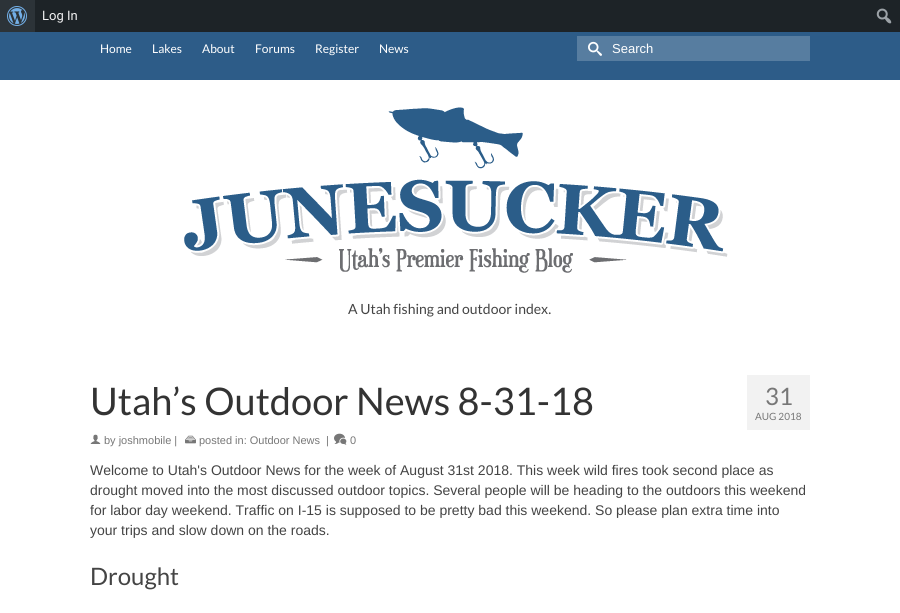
#include <cairo/cairo.h>
#include <math.h>
#include <stddef.h>


static void draw_image(cairo_t *cr, const char *path, double x, double y, double w, double h) {
  cairo_surface_t *image = cairo_image_surface_create_from_png(path);
  cairo_save(cr);
  cairo_set_source_surface(cr, image, x, y);
  cairo_rectangle(cr, x, y, w, h);
  cairo_fill(cr);
  cairo_restore(cr);
  cairo_surface_destroy(image);
}

static void draw(cairo_t *cr) {
  cairo_set_source_rgb(cr, 1, 1, 1);
  cairo_paint(cr);
  cairo_set_source_rgb(cr, 29 / 255.0, 35 / 255.0, 39 / 255.0);
  cairo_rectangle(cr, 35, 0, 865, 32);
  cairo_fill(cr);
  cairo_set_source_rgb(cr, 44 / 255.0, 51 / 255.0, 56 / 255.0);
  cairo_rectangle(cr, 0, 0, 35, 32);
  cairo_fill(cr);
  draw_image(cr, "images/1.png", 7, 6, 20, 20);
  draw_image(cr, "images/2.png", 876, 8, 16, 16);
  cairo_set_source_rgb(cr, 45 / 255.0, 92 / 255.0, 136 / 255.0);
  cairo_rectangle(cr, 0, 32, 900, 48);
  cairo_fill(cr);
  cairo_set_source_rgb(cr, 87 / 255.0, 125 / 255.0, 160 / 255.0);
  cairo_rectangle(cr, 577, 36, 233, 25);
  cairo_fill(cr);
  draw_image(cr, "images/3.png", 588, 41, 14, 15);
  draw_image(cr, "images/4.png", 184, 107, 544, 166);
  draw_image(cr, "images/5.png", 90, 434, 11, 10);
  draw_image(cr, "images/6.png", 185, 435, 11, 9);
  draw_image(cr, "images/7.png", 334, 433, 13, 12);
  cairo_set_source_rgb(cr, 242 / 255.0, 242 / 255.0, 242 / 255.0);
  cairo_rectangle(cr, 747, 375, 63, 55);
  cairo_fill(cr);
  cairo_select_font_face(cr, "Roboto", CAIRO_FONT_SLANT_NORMAL, CAIRO_FONT_WEIGHT_NORMAL);
  cairo_set_font_size(cr, 13);
  cairo_set_source_rgb(cr, 240 / 255.0, 240 / 255.0, 241 / 255.0);
  cairo_move_to(cr, 42, 20);
  cairo_show_text(cr, "Log In");
  cairo_select_font_face(cr, "Lato", CAIRO_FONT_SLANT_NORMAL, CAIRO_FONT_WEIGHT_NORMAL);
  cairo_set_font_size(cr, 12);
  cairo_set_source_rgb(cr, 1, 1, 1);
  cairo_move_to(cr, 100, 53);
  cairo_show_text(cr, "Home");
  cairo_move_to(cr, 152, 53);
  cairo_show_text(cr, "Lakes");
  cairo_move_to(cr, 202, 53);
  cairo_show_text(cr, "About");
  cairo_move_to(cr, 255, 53);
  cairo_show_text(cr, "Forums");
  cairo_move_to(cr, 315, 53);
  cairo_show_text(cr, "Register");
  cairo_move_to(cr, 379, 53);
  cairo_show_text(cr, "News");
  cairo_select_font_face(cr, "Liberation Sans", CAIRO_FONT_SLANT_NORMAL, CAIRO_FONT_WEIGHT_NORMAL);
  cairo_set_font_size(cr, 13);
  cairo_move_to(cr, 612, 53);
  cairo_show_text(cr, "Search");
  cairo_select_font_face(cr, "Lato", CAIRO_FONT_SLANT_NORMAL, CAIRO_FONT_WEIGHT_NORMAL);
  cairo_set_font_size(cr, 14);
  cairo_set_source_rgb(cr, 68 / 255.0, 68 / 255.0, 68 / 255.0);
  cairo_move_to(cr, 348, 314);
  cairo_show_text(cr, "A Utah fishing and outdoor index.");
  cairo_set_font_size(cr, 38);
  cairo_set_source_rgb(cr, 51 / 255.0, 51 / 255.0, 51 / 255.0);
  cairo_move_to(cr, 90, 415);
  cairo_show_text(cr, "Utah’s Outdoor News 8-31-18");
  cairo_select_font_face(cr, "Liberation Sans", CAIRO_FONT_SLANT_NORMAL, CAIRO_FONT_WEIGHT_NORMAL);
  cairo_set_font_size(cr, 11);
  cairo_set_source_rgb(cr, 119 / 255.0, 119 / 255.0, 119 / 255.0);
  cairo_move_to(cr, 104, 444);
  cairo_show_text(cr, "by joshmobile |");
  cairo_move_to(cr, 199, 444);
  cairo_show_text(cr, "posted in: Outdoor News");
  cairo_move_to(cr, 326, 444);
  cairo_show_text(cr, "|");
  cairo_move_to(cr, 350, 444);
  cairo_show_text(cr, "0");
  cairo_select_font_face(cr, "Lato", CAIRO_FONT_SLANT_NORMAL, CAIRO_FONT_WEIGHT_NORMAL);
  cairo_set_font_size(cr, 24);
  cairo_move_to(cr, 765, 405);
  cairo_show_text(cr, "31");
  cairo_set_font_size(cr, 10);
  cairo_move_to(cr, 755, 420);
  cairo_show_text(cr, "AUG 2018");
  cairo_select_font_face(cr, "Liberation Sans", CAIRO_FONT_SLANT_NORMAL, CAIRO_FONT_WEIGHT_NORMAL);
  cairo_set_font_size(cr, 14);
  cairo_set_source_rgb(cr, 68 / 255.0, 68 / 255.0, 68 / 255.0);
  cairo_move_to(cr, 90, 475);
  cairo_show_text(cr, "Welcome to Utah's Outdoor News for the week of August 31st 2018. This week wild fires took second place as");
  cairo_move_to(cr, 90, 495);
  cairo_show_text(cr, "drought moved into the most discussed outdoor topics. Several people will be heading to the outdoors this weekend");
  cairo_move_to(cr, 90, 515);
  cairo_show_text(cr, "for labor day weekend. Traffic on I-15 is supposed to be pretty bad this weekend. So please plan extra time into");
  cairo_move_to(cr, 90, 535);
  cairo_show_text(cr, "your trips and slow down on the roads.");
  cairo_select_font_face(cr, "Lato", CAIRO_FONT_SLANT_NORMAL, CAIRO_FONT_WEIGHT_NORMAL);
  cairo_set_font_size(cr, 24);
  cairo_move_to(cr, 90, 585);
  cairo_show_text(cr, "Drought");
}

int main(void) {
  cairo_surface_t *surface = cairo_image_surface_create(CAIRO_FORMAT_RGB24, 900, 613);
  cairo_t *cr = cairo_create(surface);
  cairo_font_options_t *options = cairo_font_options_create();
  cairo_font_options_set_hint_metrics(options, CAIRO_HINT_METRICS_OFF);
  cairo_font_options_set_hint_style(options, CAIRO_HINT_STYLE_NONE);
  cairo_set_font_options(cr, options);
  cairo_set_miter_limit(cr, 4);
  draw(cr);
  cairo_surface_write_to_png(surface, "out.png");
  cairo_font_options_destroy(options);
  cairo_destroy(cr);
  cairo_surface_destroy(surface);
  return 0;
}
